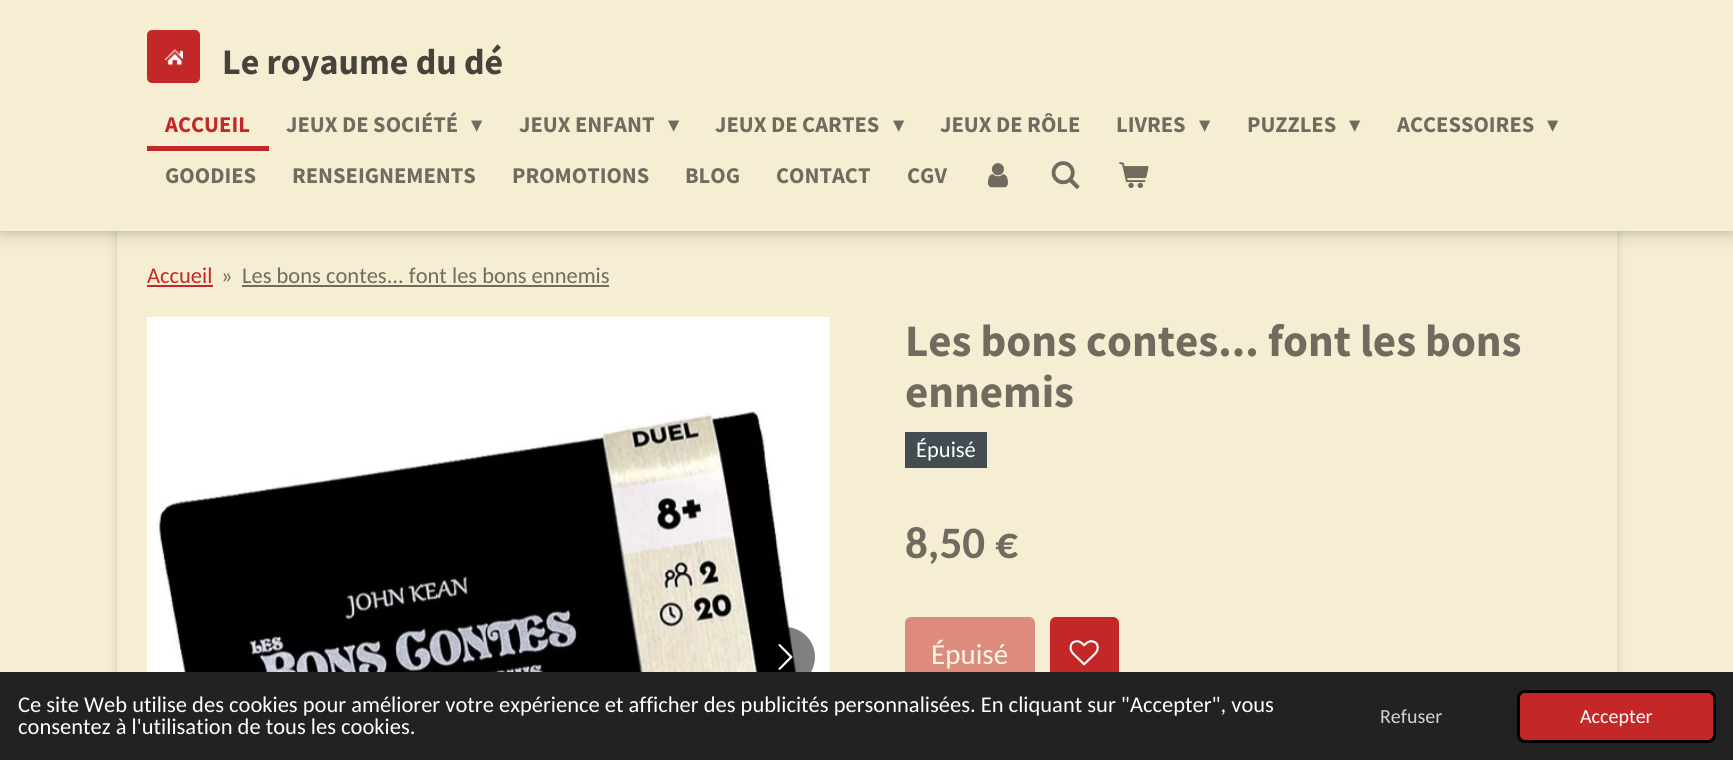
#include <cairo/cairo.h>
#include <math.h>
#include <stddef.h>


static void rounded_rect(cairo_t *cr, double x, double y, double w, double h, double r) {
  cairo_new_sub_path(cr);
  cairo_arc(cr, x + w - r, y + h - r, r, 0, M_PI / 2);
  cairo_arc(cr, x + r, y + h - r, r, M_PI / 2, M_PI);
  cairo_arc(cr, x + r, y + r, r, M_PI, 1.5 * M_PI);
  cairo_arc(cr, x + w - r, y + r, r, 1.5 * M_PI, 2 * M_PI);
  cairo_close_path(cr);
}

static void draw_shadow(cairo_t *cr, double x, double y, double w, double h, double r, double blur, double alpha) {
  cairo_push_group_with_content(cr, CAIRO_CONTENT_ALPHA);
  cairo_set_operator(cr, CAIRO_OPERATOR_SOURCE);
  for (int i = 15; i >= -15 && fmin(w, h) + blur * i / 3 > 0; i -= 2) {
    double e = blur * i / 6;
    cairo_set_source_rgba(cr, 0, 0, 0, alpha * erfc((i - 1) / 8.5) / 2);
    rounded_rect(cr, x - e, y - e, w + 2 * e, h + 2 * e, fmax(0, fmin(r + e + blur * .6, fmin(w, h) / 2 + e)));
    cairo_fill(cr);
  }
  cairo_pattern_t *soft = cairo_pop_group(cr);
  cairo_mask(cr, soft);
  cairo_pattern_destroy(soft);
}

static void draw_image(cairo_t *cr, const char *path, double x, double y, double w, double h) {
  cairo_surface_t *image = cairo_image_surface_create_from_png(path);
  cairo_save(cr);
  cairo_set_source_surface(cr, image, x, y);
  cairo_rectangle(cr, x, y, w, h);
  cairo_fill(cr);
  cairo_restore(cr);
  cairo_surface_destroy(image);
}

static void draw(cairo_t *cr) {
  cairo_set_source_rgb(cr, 246 / 255.0, 238 / 255.0, 210 / 255.0);
  cairo_paint(cr);
  cairo_set_source_rgb(cr, 0, 0, 0);
  draw_shadow(cr, 117, 209, 1500, 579, 5, 7.5, 0.05);
  draw_shadow(cr, 117, 216, 1500, 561, 5, 4, 0.1);
  cairo_set_source_rgb(cr, 246 / 255.0, 238 / 255.0, 210 / 255.0);
  cairo_rectangle(cr, 117, 231, 1500, 441);
  cairo_fill(cr);
  cairo_set_source_rgb(cr, 0, 0, 0);
  draw_shadow(cr, 0, 8, 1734, 231, 0, 7.5, 0.1);
  draw_shadow(cr, 0, 0, 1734, 231, 0, 4, 0.15);
  cairo_set_source_rgb(cr, 246 / 255.0, 238 / 255.0, 210 / 255.0);
  cairo_rectangle(cr, 0, 0, 1733, 231);
  cairo_fill(cr);
  cairo_set_source_rgb(cr, 196 / 255.0, 39 / 255.0, 39 / 255.0);
  rounded_rect(cr, 147, 30, 53, 53, 5);
  cairo_fill(cr);
  draw_image(cr, "images/1.png", 164, 49, 19, 16);
  cairo_rectangle(cr, 147, 146, 122, 5);
  cairo_fill(cr);
  draw_image(cr, "images/2.png", 987, 163, 21, 25);
  draw_image(cr, "images/3.png", 1051, 161, 29, 29);
  draw_image(cr, "images/4.png", 1119, 162, 30, 27);
  cairo_rectangle(cr, 147, 285, 66, 2);
  cairo_fill(cr);
  cairo_set_source_rgb(cr, 111 / 255.0, 107 / 255.0, 94 / 255.0);
  cairo_rectangle(cr, 242, 285, 367, 2);
  cairo_fill(cr);
  draw_image(cr, "images/5.png", 147, 317, 683, 355);
  cairo_set_source_rgba(cr, 0, 0, 0, 0.5);
  cairo_arc(cr, 785, 657, 30, 0, 2 * M_PI);
  cairo_fill(cr);
  draw_image(cr, "images/6.png", 778, 644, 15, 26);
  cairo_set_source_rgb(cr, 66 / 255.0, 76 / 255.0, 81 / 255.0);
  cairo_rectangle(cr, 905, 432, 82, 36);
  cairo_fill(cr);
  cairo_set_source_rgb(cr, 221 / 255.0, 139 / 255.0, 125 / 255.0);
  rounded_rect(cr, 905, 617, 130, 75, 6);
  cairo_fill(cr);
  cairo_set_source_rgb(cr, 196 / 255.0, 39 / 255.0, 39 / 255.0);
  rounded_rect(cr, 1050, 617, 69, 75, 6);
  cairo_fill(cr);
  draw_image(cr, "images/7.png", 1069, 640, 30, 26);
  cairo_set_source_rgb(cr, 34 / 255.0, 34 / 255.0, 34 / 255.0);
  cairo_rectangle(cr, 0, 672, 1733, 88);
  cairo_fill(cr);
  cairo_set_source_rgb(cr, 196 / 255.0, 39 / 255.0, 39 / 255.0);
  rounded_rect(cr, 1518.5, 691.5, 196, 50, 6.5);
  cairo_fill_preserve(cr);
  cairo_set_source_rgb(cr, 0, 0, 0);
  cairo_set_line_width(cr, 3);
  cairo_stroke(cr);
  cairo_select_font_face(cr, "Source Sans Pro", CAIRO_FONT_SLANT_NORMAL, CAIRO_FONT_WEIGHT_BOLD);
  cairo_set_font_size(cr, 36);
  cairo_set_source_rgb(cr, 69 / 255.0, 67 / 255.0, 59 / 255.0);
  cairo_move_to(cr, 222, 74);
  cairo_show_text(cr, "Le royaume du dé");
  cairo_set_font_size(cr, 22.5);
  cairo_set_source_rgb(cr, 196 / 255.0, 39 / 255.0, 39 / 255.0);
  cairo_move_to(cr, 165, 132);
  cairo_show_text(cr, "ACCUEIL");
  cairo_set_source_rgb(cr, 111 / 255.0, 107 / 255.0, 94 / 255.0);
  cairo_move_to(cr, 286, 132);
  cairo_show_text(cr, "JEUX DE SOCIÉTÉ");
  cairo_select_font_face(cr, "DejaVu Sans", CAIRO_FONT_SLANT_NORMAL, CAIRO_FONT_WEIGHT_NORMAL);
  cairo_move_to(cr, 471, 132);
  cairo_show_text(cr, "▾");
  cairo_select_font_face(cr, "Source Sans Pro", CAIRO_FONT_SLANT_NORMAL, CAIRO_FONT_WEIGHT_BOLD);
  cairo_move_to(cr, 519, 132);
  cairo_show_text(cr, "JEUX ENFANT");
  cairo_select_font_face(cr, "DejaVu Sans", CAIRO_FONT_SLANT_NORMAL, CAIRO_FONT_WEIGHT_NORMAL);
  cairo_move_to(cr, 668, 132);
  cairo_show_text(cr, "▾");
  cairo_select_font_face(cr, "Source Sans Pro", CAIRO_FONT_SLANT_NORMAL, CAIRO_FONT_WEIGHT_BOLD);
  cairo_move_to(cr, 715, 132);
  cairo_show_text(cr, "JEUX DE CARTES");
  cairo_select_font_face(cr, "DejaVu Sans", CAIRO_FONT_SLANT_NORMAL, CAIRO_FONT_WEIGHT_NORMAL);
  cairo_move_to(cr, 893, 132);
  cairo_show_text(cr, "▾");
  cairo_select_font_face(cr, "Source Sans Pro", CAIRO_FONT_SLANT_NORMAL, CAIRO_FONT_WEIGHT_BOLD);
  cairo_move_to(cr, 940, 132);
  cairo_show_text(cr, "JEUX DE RÔLE");
  cairo_move_to(cr, 1116, 132);
  cairo_show_text(cr, "LIVRES");
  cairo_select_font_face(cr, "DejaVu Sans", CAIRO_FONT_SLANT_NORMAL, CAIRO_FONT_WEIGHT_NORMAL);
  cairo_move_to(cr, 1199, 132);
  cairo_show_text(cr, "▾");
  cairo_select_font_face(cr, "Source Sans Pro", CAIRO_FONT_SLANT_NORMAL, CAIRO_FONT_WEIGHT_BOLD);
  cairo_move_to(cr, 1247, 132);
  cairo_show_text(cr, "PUZZLES");
  cairo_select_font_face(cr, "DejaVu Sans", CAIRO_FONT_SLANT_NORMAL, CAIRO_FONT_WEIGHT_NORMAL);
  cairo_move_to(cr, 1349, 132);
  cairo_show_text(cr, "▾");
  cairo_select_font_face(cr, "Source Sans Pro", CAIRO_FONT_SLANT_NORMAL, CAIRO_FONT_WEIGHT_BOLD);
  cairo_move_to(cr, 1397, 132);
  cairo_show_text(cr, "ACCESSOIRES");
  cairo_select_font_face(cr, "DejaVu Sans", CAIRO_FONT_SLANT_NORMAL, CAIRO_FONT_WEIGHT_NORMAL);
  cairo_move_to(cr, 1547, 132);
  cairo_show_text(cr, "▾");
  cairo_select_font_face(cr, "Source Sans Pro", CAIRO_FONT_SLANT_NORMAL, CAIRO_FONT_WEIGHT_BOLD);
  cairo_move_to(cr, 165, 183);
  cairo_show_text(cr, "GOODIES");
  cairo_move_to(cr, 292, 183);
  cairo_show_text(cr, "RENSEIGNEMENTS");
  cairo_move_to(cr, 512, 183);
  cairo_show_text(cr, "PROMOTIONS");
  cairo_move_to(cr, 685, 183);
  cairo_show_text(cr, "BLOG");
  cairo_move_to(cr, 776, 183);
  cairo_show_text(cr, "CONTACT");
  cairo_move_to(cr, 907, 183);
  cairo_show_text(cr, "CGV");
  cairo_select_font_face(cr, "Carlito", CAIRO_FONT_SLANT_NORMAL, CAIRO_FONT_WEIGHT_NORMAL);
  cairo_set_source_rgb(cr, 196 / 255.0, 39 / 255.0, 39 / 255.0);
  cairo_move_to(cr, 147, 283);
  cairo_show_text(cr, "Accueil");
  cairo_set_source_rgb(cr, 111 / 255.0, 107 / 255.0, 94 / 255.0);
  cairo_move_to(cr, 221, 283);
  cairo_show_text(cr, "»");
  cairo_move_to(cr, 242, 283);
  cairo_show_text(cr, "Les bons contes... font les bons ennemis");
  cairo_select_font_face(cr, "Source Sans Pro", CAIRO_FONT_SLANT_NORMAL, CAIRO_FONT_WEIGHT_BOLD);
  cairo_set_font_size(cr, 45);
  cairo_move_to(cr, 905, 356);
  cairo_show_text(cr, "Les bons contes... font les bons");
  cairo_move_to(cr, 905, 407);
  cairo_show_text(cr, "ennemis");
  cairo_select_font_face(cr, "Carlito", CAIRO_FONT_SLANT_NORMAL, CAIRO_FONT_WEIGHT_NORMAL);
  cairo_set_font_size(cr, 22.5);
  cairo_set_source_rgb(cr, 1, 1, 1);
  cairo_move_to(cr, 916, 457);
  cairo_show_text(cr, "Épuisé");
  cairo_select_font_face(cr, "Carlito", CAIRO_FONT_SLANT_NORMAL, CAIRO_FONT_WEIGHT_BOLD);
  cairo_set_font_size(cr, 45);
  cairo_set_source_rgb(cr, 111 / 255.0, 107 / 255.0, 94 / 255.0);
  cairo_move_to(cr, 905, 558);
  cairo_show_text(cr, "8,50 €");
  cairo_select_font_face(cr, "Carlito", CAIRO_FONT_SLANT_NORMAL, CAIRO_FONT_WEIGHT_NORMAL);
  cairo_set_font_size(cr, 29);
  cairo_set_source_rgb(cr, 251 / 255.0, 247 / 255.0, 233 / 255.0);
  cairo_move_to(cr, 931, 664);
  cairo_show_text(cr, "Épuisé");
  cairo_set_font_size(cr, 22.5);
  cairo_set_source_rgb(cr, 1, 1, 1);
  cairo_move_to(cr, 18, 712);
  cairo_show_text(cr, "Ce site Web utilise des cookies pour améliorer votre expérience et afficher des publicités personnalisées. En cliquant sur \"Accepter\", vous");
  cairo_move_to(cr, 18, 734);
  cairo_show_text(cr, "consentez à l'utilisation de tous les cookies.");
  cairo_set_font_size(cr, 20);
  cairo_set_source_rgb(cr, 211 / 255.0, 211 / 255.0, 211 / 255.0);
  cairo_move_to(cr, 1380, 723);
  cairo_show_text(cr, "Refuser");
  cairo_set_source_rgb(cr, 1, 1, 1);
  cairo_move_to(cr, 1580, 723);
  cairo_show_text(cr, "Accepter");
}

int main(void) {
  cairo_surface_t *surface = cairo_image_surface_create(CAIRO_FORMAT_RGB24, 1733, 760);
  cairo_t *cr = cairo_create(surface);
  cairo_font_options_t *options = cairo_font_options_create();
  cairo_font_options_set_hint_metrics(options, CAIRO_HINT_METRICS_OFF);
  cairo_font_options_set_hint_style(options, CAIRO_HINT_STYLE_NONE);
  cairo_set_font_options(cr, options);
  cairo_set_miter_limit(cr, 4);
  draw(cr);
  cairo_surface_write_to_png(surface, "out.png");
  cairo_font_options_destroy(options);
  cairo_destroy(cr);
  cairo_surface_destroy(surface);
  return 0;
}
